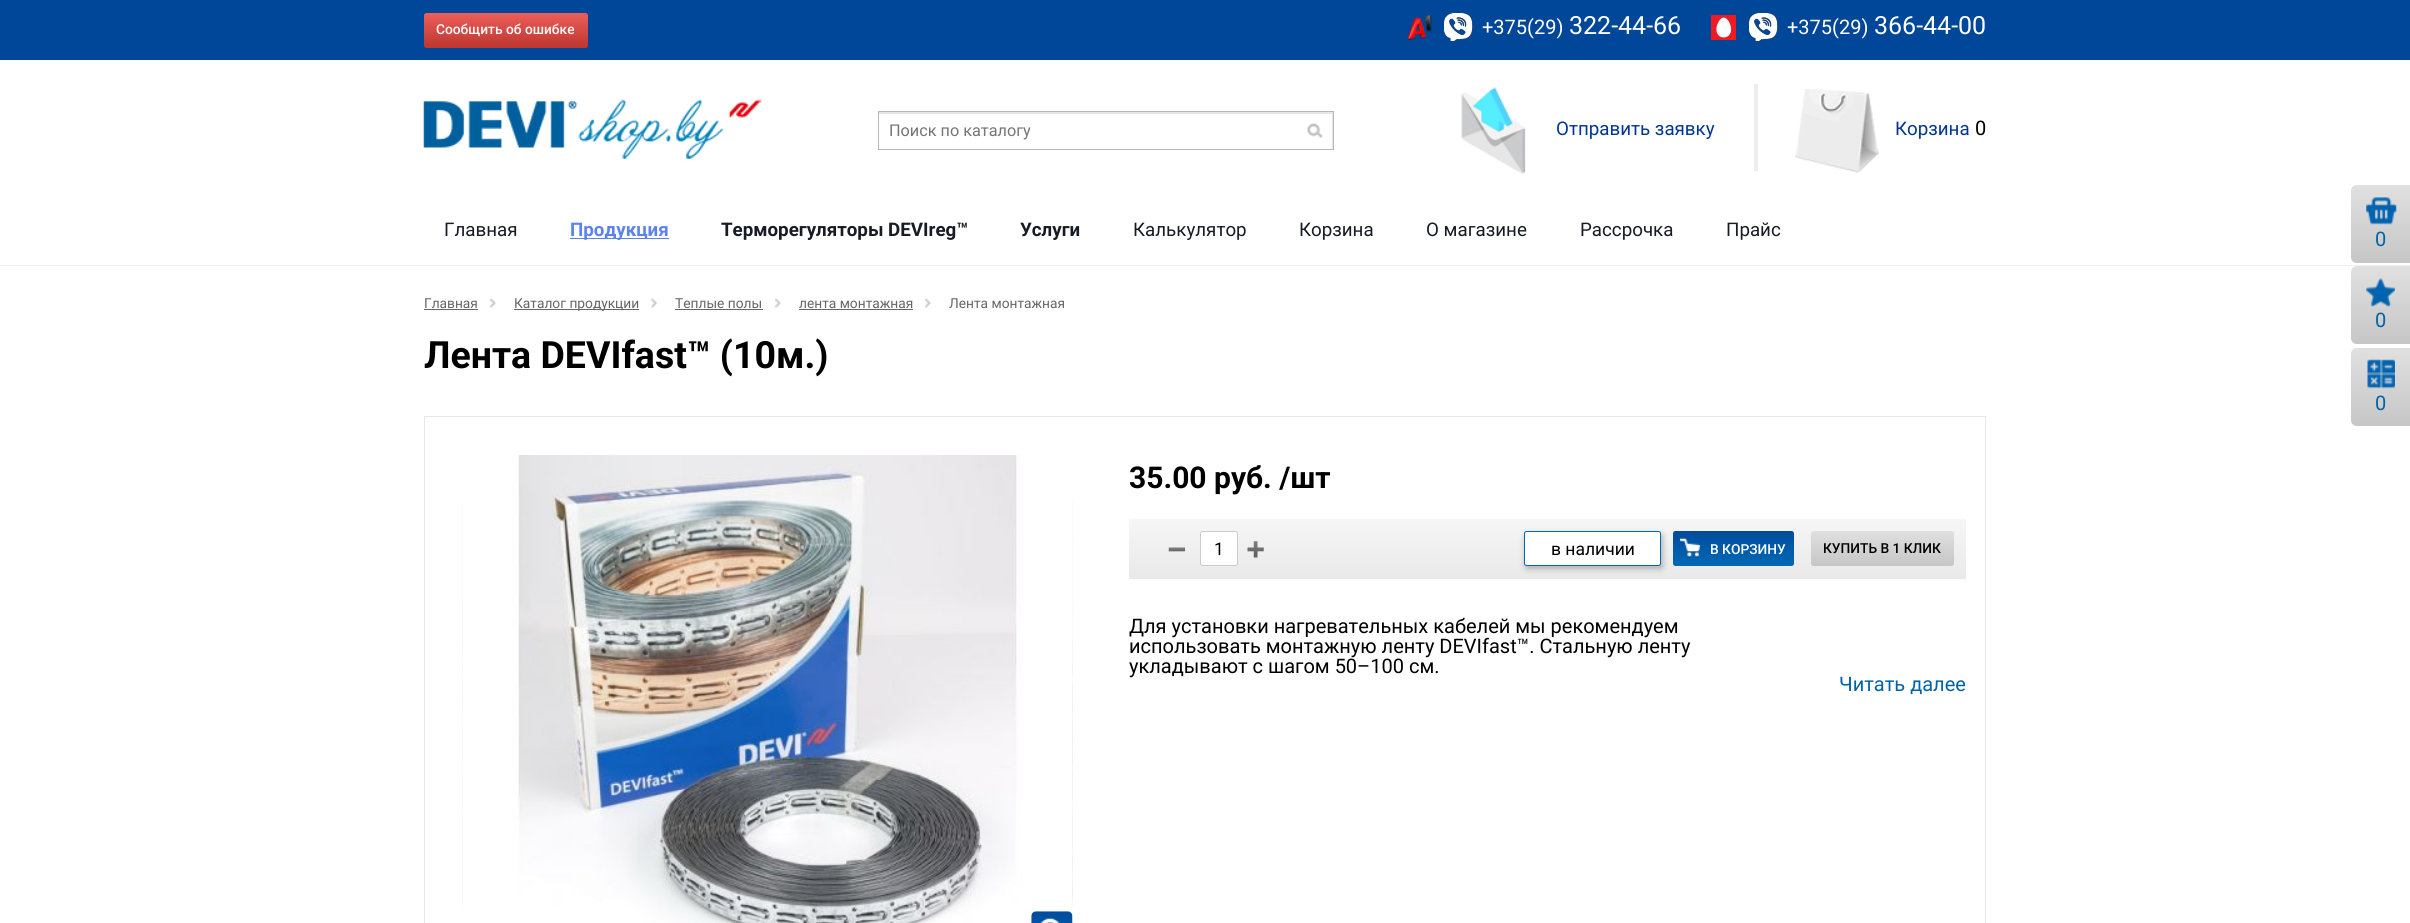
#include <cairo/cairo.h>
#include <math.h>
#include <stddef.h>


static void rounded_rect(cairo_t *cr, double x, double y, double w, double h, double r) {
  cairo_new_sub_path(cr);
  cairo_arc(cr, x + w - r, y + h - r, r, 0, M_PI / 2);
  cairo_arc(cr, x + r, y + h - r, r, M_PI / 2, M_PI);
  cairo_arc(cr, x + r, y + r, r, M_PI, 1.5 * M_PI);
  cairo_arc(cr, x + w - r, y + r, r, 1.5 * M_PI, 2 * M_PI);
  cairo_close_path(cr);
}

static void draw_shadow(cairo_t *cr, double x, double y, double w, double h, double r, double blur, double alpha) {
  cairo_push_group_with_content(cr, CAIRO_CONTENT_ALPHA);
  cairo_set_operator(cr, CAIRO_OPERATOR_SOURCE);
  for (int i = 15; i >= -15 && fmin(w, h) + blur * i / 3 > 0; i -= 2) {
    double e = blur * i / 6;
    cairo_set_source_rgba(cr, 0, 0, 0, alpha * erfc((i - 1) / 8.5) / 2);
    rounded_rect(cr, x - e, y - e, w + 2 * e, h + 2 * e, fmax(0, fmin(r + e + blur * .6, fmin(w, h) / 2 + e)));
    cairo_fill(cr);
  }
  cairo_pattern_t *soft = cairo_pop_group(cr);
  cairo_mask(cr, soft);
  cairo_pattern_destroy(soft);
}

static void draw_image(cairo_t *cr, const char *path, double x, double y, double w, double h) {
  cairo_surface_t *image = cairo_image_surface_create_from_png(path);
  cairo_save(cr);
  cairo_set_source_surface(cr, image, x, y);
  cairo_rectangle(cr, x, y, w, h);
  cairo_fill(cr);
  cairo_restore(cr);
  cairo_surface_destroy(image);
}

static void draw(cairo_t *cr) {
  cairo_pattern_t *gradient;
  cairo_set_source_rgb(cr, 1, 1, 1);
  cairo_paint(cr);
  cairo_set_source_rgb(cr, 0, 71 / 255.0, 153 / 255.0);
  cairo_rectangle(cr, 0, 0, 2410, 60);
  cairo_fill(cr);
  gradient = cairo_pattern_create_linear(506, 12, 506, 48);
  cairo_pattern_add_color_stop_rgba(gradient, 0, 238 / 255.0, 95 / 255.0, 91 / 255.0, 1);
  cairo_pattern_add_color_stop_rgba(gradient, 1, 189 / 255.0, 54 / 255.0, 47 / 255.0, 1);
  cairo_set_source(cr, gradient);
  cairo_pattern_destroy(gradient);
  rounded_rect(cr, 424, 13, 164, 35, 2.5);
  cairo_fill(cr);
  draw_image(cr, "images/1.png", 1407, 15, 25, 25);
  draw_image(cr, "images/2.png", 1444, 13, 29, 28);
  draw_image(cr, "images/3.png", 1711, 15, 25, 25);
  draw_image(cr, "images/2.png", 1749, 13, 29, 28);
  draw_image(cr, "images/4.png", 423, 98, 339, 61);
  cairo_save(cr);
  cairo_rectangle(cr, 878, 111, 456, 39);
  cairo_clip(cr);
  cairo_set_source_rgb(cr, 229 / 255.0, 229 / 255.0, 229 / 255.0);
  cairo_set_fill_rule(cr, CAIRO_FILL_RULE_EVEN_ODD);
  cairo_new_path(cr);
  cairo_move_to(cr, 754, -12);
  cairo_line_to(cr, 1458, -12);
  cairo_line_to(cr, 1458, 274);
  cairo_line_to(cr, 754, 274);
  cairo_close_path(cr);
  cairo_move_to(cr, 879, 114);
  cairo_line_to(cr, 1332, 114);
  cairo_line_to(cr, 1332, 150);
  cairo_line_to(cr, 879, 150);
  cairo_close_path(cr);
  cairo_fill(cr);
  cairo_restore(cr);
  cairo_rectangle(cr, 878.5, 111.5, 455, 38);
  cairo_set_source_rgb(cr, 183 / 255.0, 184 / 255.0, 185 / 255.0);
  cairo_set_line_width(cr, 1);
  cairo_stroke(cr);
  draw_image(cr, "images/5.png", 1307, 123, 16, 15);
  draw_image(cr, "images/6.png", 1461, 87, 65, 87);
  cairo_set_source_rgb(cr, 238 / 255.0, 238 / 255.0, 238 / 255.0);
  cairo_rectangle(cr, 1754, 84, 4, 87);
  cairo_fill(cr);
  draw_image(cr, "images/7.png", 1795, 89, 84, 84);
  cairo_set_source_rgb(cr, 240 / 255.0, 240 / 255.0, 240 / 255.0);
  cairo_rectangle(cr, 0, 265, 2410, 1);
  cairo_fill(cr);
  cairo_set_source_rgb(cr, 91 / 255.0, 130 / 255.0, 241 / 255.0);
  cairo_rectangle(cr, 570, 238, 99, 1);
  cairo_fill(cr);
  cairo_set_source_rgb(cr, 102 / 255.0, 102 / 255.0, 102 / 255.0);
  cairo_rectangle(cr, 424, 309, 54, 1);
  cairo_fill(cr);
  draw_image(cr, "images/8.png", 490, 298, 7, 10);
  cairo_rectangle(cr, 514, 309, 125, 1);
  cairo_fill(cr);
  draw_image(cr, "images/9.png", 651, 298, 7, 10);
  cairo_rectangle(cr, 675, 309, 88, 1);
  cairo_fill(cr);
  draw_image(cr, "images/8.png", 775, 298, 7, 10);
  cairo_rectangle(cr, 799, 309, 114, 1);
  cairo_fill(cr);
  draw_image(cr, "images/8.png", 925, 298, 7, 10);
  cairo_rectangle(cr, 424.5, 416.5, 1561, 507);
  cairo_set_source_rgb(cr, 231 / 255.0, 231 / 255.0, 231 / 255.0);
  cairo_stroke(cr);
  draw_image(cr, "images/12.png", 462, 499, 611, 411);
  draw_image(cr, "images/13.png", 462, 499, 611, 411);
  draw_image(cr, "images/14.png", 462, 500, 611, 407);
  draw_image(cr, "images/10.png", 462, 455, 611, 468);
  draw_image(cr, "images/11.png", 1031, 911, 42, 12);
  gradient = cairo_pattern_create_linear(1548, 519, 1548, 579);
  cairo_pattern_add_color_stop_rgba(gradient, 0, 246 / 255.0, 246 / 255.0, 246 / 255.0, 1);
  cairo_pattern_add_color_stop_rgba(gradient, 1, 233 / 255.0, 233 / 255.0, 233 / 255.0, 1);
  cairo_set_source(cr, gradient);
  cairo_pattern_destroy(gradient);
  cairo_rectangle(cr, 1129, 519, 837, 60);
  cairo_fill(cr);
  draw_image(cr, "images/15.png", 1168, 547, 17, 5);
  cairo_set_source_rgb(cr, 1, 1, 1);
  rounded_rect(cr, 1200.5, 531.5, 37, 34, 2);
  cairo_fill_preserve(cr);
  cairo_set_source_rgb(cr, 203 / 255.0, 203 / 255.0, 203 / 255.0);
  cairo_stroke(cr);
  draw_image(cr, "images/16.png", 1247, 541, 17, 17);
  cairo_set_source_rgb(cr, 0, 0, 0);
  draw_shadow(cr, 1525, 534, 138, 35, 2.5, 3, 0.25);
  cairo_set_source_rgb(cr, 1, 1, 1);
  rounded_rect(cr, 1524.5, 531.5, 136, 34, 2);
  cairo_fill_preserve(cr);
  cairo_set_source_rgb(cr, 0, 103 / 255.0, 180 / 255.0);
  cairo_stroke(cr);
  gradient = cairo_pattern_create_linear(1733, 566, 1733, 531);
  cairo_pattern_add_color_stop_rgba(gradient, 0, 0, 104 / 255.0, 181 / 255.0, 1);
  cairo_pattern_add_color_stop_rgba(gradient, 1, 0, 76 / 255.0, 155 / 255.0, 1);
  cairo_set_source(cr, gradient);
  cairo_pattern_destroy(gradient);
  rounded_rect(cr, 1673, 531, 121, 35, 2.5);
  cairo_fill(cr);
  draw_image(cr, "images/17.png", 1680, 538, 20, 20);
  gradient = cairo_pattern_create_linear(1883, 531, 1883, 566);
  cairo_pattern_add_color_stop_rgba(gradient, 0, 224 / 255.0, 224 / 255.0, 224 / 255.0, 1);
  cairo_pattern_add_color_stop_rgba(gradient, 1, 198 / 255.0, 198 / 255.0, 198 / 255.0, 1);
  cairo_set_source(cr, gradient);
  cairo_pattern_destroy(gradient);
  rounded_rect(cr, 1811, 531, 143, 35, 2.5);
  cairo_fill(cr);
  gradient = cairo_pattern_create_linear(2381, 185, 2381, 263);
  cairo_pattern_add_color_stop_rgba(gradient, 0, 224 / 255.0, 224 / 255.0, 224 / 255.0, 1);
  cairo_pattern_add_color_stop_rgba(gradient, 1, 198 / 255.0, 198 / 255.0, 198 / 255.0, 1);
  cairo_set_source(cr, gradient);
  cairo_pattern_destroy(gradient);
  cairo_new_path(cr);
  cairo_move_to(cr, 2357, 185);
  cairo_line_to(cr, 2410, 185);
  cairo_line_to(cr, 2410, 263);
  cairo_line_to(cr, 2357, 263);
  cairo_curve_to(cr, 2353.5, 263, 2351, 260.5, 2351, 257);
  cairo_line_to(cr, 2351, 191);
  cairo_curve_to(cr, 2351, 187.5, 2353.5, 185, 2357, 185);
  cairo_close_path(cr);
  cairo_fill(cr);
  draw_image(cr, "images/18.png", 2366, 197, 31, 28);
  gradient = cairo_pattern_create_linear(2381, 266, 2381, 344);
  cairo_pattern_add_color_stop_rgba(gradient, 0, 224 / 255.0, 224 / 255.0, 224 / 255.0, 1);
  cairo_pattern_add_color_stop_rgba(gradient, 1, 198 / 255.0, 198 / 255.0, 198 / 255.0, 1);
  cairo_set_source(cr, gradient);
  cairo_pattern_destroy(gradient);
  cairo_new_path(cr);
  cairo_move_to(cr, 2357, 266);
  cairo_line_to(cr, 2410, 266);
  cairo_line_to(cr, 2410, 344);
  cairo_line_to(cr, 2357, 344);
  cairo_curve_to(cr, 2353.5, 344, 2351, 341.5, 2351, 338);
  cairo_line_to(cr, 2351, 272);
  cairo_curve_to(cr, 2351, 268.5, 2353.5, 266, 2357, 266);
  cairo_close_path(cr);
  cairo_fill(cr);
  draw_image(cr, "images/19.png", 2366, 278, 29, 29);
  gradient = cairo_pattern_create_linear(2381, 348, 2381, 426);
  cairo_pattern_add_color_stop_rgba(gradient, 0, 224 / 255.0, 224 / 255.0, 224 / 255.0, 1);
  cairo_pattern_add_color_stop_rgba(gradient, 1, 198 / 255.0, 198 / 255.0, 198 / 255.0, 1);
  cairo_set_source(cr, gradient);
  cairo_pattern_destroy(gradient);
  cairo_new_path(cr);
  cairo_move_to(cr, 2357, 348);
  cairo_line_to(cr, 2410, 348);
  cairo_line_to(cr, 2410, 426);
  cairo_line_to(cr, 2357, 426);
  cairo_curve_to(cr, 2353.5, 426, 2351, 423.5, 2351, 420);
  cairo_line_to(cr, 2351, 354);
  cairo_curve_to(cr, 2351, 350.5, 2353.5, 348, 2357, 348);
  cairo_close_path(cr);
  cairo_fill(cr);
  draw_image(cr, "images/20.png", 2367, 359, 28, 30);
  cairo_select_font_face(cr, "Roboto Medium", CAIRO_FONT_SLANT_NORMAL, CAIRO_FONT_WEIGHT_NORMAL);
  cairo_set_font_size(cr, 13.75);
  cairo_set_source_rgb(cr, 1, 1, 1);
  cairo_move_to(cr, 436, 34);
  cairo_show_text(cr, "Сообщить об ошибке");
  cairo_select_font_face(cr, "Roboto", CAIRO_FONT_SLANT_NORMAL, CAIRO_FONT_WEIGHT_NORMAL);
  cairo_set_font_size(cr, 20);
  cairo_move_to(cr, 1482, 34);
  cairo_show_text(cr, "+375(29)");
  cairo_set_font_size(cr, 25);
  cairo_move_to(cr, 1569, 34);
  cairo_show_text(cr, "322-44-66");
  cairo_set_font_size(cr, 20);
  cairo_move_to(cr, 1787, 34);
  cairo_show_text(cr, "+375(29)");
  cairo_set_font_size(cr, 25);
  cairo_move_to(cr, 1874, 34);
  cairo_show_text(cr, "366-44-00");
  cairo_set_font_size(cr, 16.25);
  cairo_set_source_rgb(cr, 117 / 255.0, 117 / 255.0, 117 / 255.0);
  cairo_move_to(cr, 889, 136);
  cairo_show_text(cr, "Поиск по каталогу");
  cairo_set_font_size(cr, 18.75);
  cairo_set_source_rgb(cr, 0, 53 / 255.0, 149 / 255.0);
  cairo_move_to(cr, 1556, 135);
  cairo_show_text(cr, "Отправить заявку");
  cairo_move_to(cr, 1895, 135);
  cairo_show_text(cr, "Корзина");
  cairo_set_font_size(cr, 20);
  cairo_set_source_rgb(cr, 0, 0, 0);
  cairo_move_to(cr, 1975, 135);
  cairo_show_text(cr, "0");
  cairo_set_font_size(cr, 18.75);
  cairo_set_source_rgb(cr, 22 / 255.0, 27 / 255.0, 36 / 255.0);
  cairo_move_to(cr, 444, 236);
  cairo_show_text(cr, "Главная");
  cairo_select_font_face(cr, "Roboto", CAIRO_FONT_SLANT_NORMAL, CAIRO_FONT_WEIGHT_BOLD);
  cairo_set_source_rgb(cr, 91 / 255.0, 130 / 255.0, 241 / 255.0);
  cairo_move_to(cr, 570, 236);
  cairo_show_text(cr, "Продукция");
  cairo_set_source_rgb(cr, 22 / 255.0, 27 / 255.0, 36 / 255.0);
  cairo_move_to(cr, 721, 236);
  cairo_show_text(cr, "Терморегуляторы DEVIreg™");
  cairo_move_to(cr, 1020, 236);
  cairo_show_text(cr, "Услуги");
  cairo_select_font_face(cr, "Roboto", CAIRO_FONT_SLANT_NORMAL, CAIRO_FONT_WEIGHT_NORMAL);
  cairo_move_to(cr, 1133, 236);
  cairo_show_text(cr, "Калькулятор");
  cairo_move_to(cr, 1299, 236);
  cairo_show_text(cr, "Корзина");
  cairo_move_to(cr, 1426, 236);
  cairo_show_text(cr, "О магазине");
  cairo_move_to(cr, 1580, 236);
  cairo_show_text(cr, "Рассрочка");
  cairo_move_to(cr, 1726, 236);
  cairo_show_text(cr, "Прайс");
  cairo_set_font_size(cr, 13.75);
  cairo_set_source_rgb(cr, 102 / 255.0, 102 / 255.0, 102 / 255.0);
  cairo_move_to(cr, 424, 308);
  cairo_show_text(cr, "Главная");
  cairo_move_to(cr, 514, 308);
  cairo_show_text(cr, "Каталог продукции");
  cairo_move_to(cr, 675, 308);
  cairo_show_text(cr, "Теплые полы");
  cairo_move_to(cr, 799, 308);
  cairo_show_text(cr, "лента монтажная");
  cairo_move_to(cr, 949, 308);
  cairo_show_text(cr, "Лента монтажная");
  cairo_select_font_face(cr, "Roboto", CAIRO_FONT_SLANT_NORMAL, CAIRO_FONT_WEIGHT_BOLD);
  cairo_set_font_size(cr, 37.5);
  cairo_set_source_rgb(cr, 0, 0, 0);
  cairo_move_to(cr, 424, 368);
  cairo_show_text(cr, "Лента DEVIfast™ (10м.)");
  cairo_set_font_size(cr, 30);
  cairo_move_to(cr, 1129, 488);
  cairo_show_text(cr, "35.00 руб. /шт");
  cairo_select_font_face(cr, "Roboto", CAIRO_FONT_SLANT_NORMAL, CAIRO_FONT_WEIGHT_NORMAL);
  cairo_set_font_size(cr, 17.5);
  cairo_move_to(cr, 1214, 555);
  cairo_show_text(cr, "1");
  cairo_move_to(cr, 1551, 555);
  cairo_show_text(cr, "в наличии");
  cairo_select_font_face(cr, "Roboto Medium", CAIRO_FONT_SLANT_NORMAL, CAIRO_FONT_WEIGHT_NORMAL);
  cairo_set_font_size(cr, 13.75);
  cairo_set_source_rgb(cr, 1, 1, 1);
  cairo_move_to(cr, 1710, 554);
  cairo_show_text(cr, "В КОРЗИНУ");
  cairo_set_source_rgb(cr, 0, 0, 0);
  cairo_move_to(cr, 1823, 553);
  cairo_show_text(cr, "КУПИТЬ В 1 КЛИК");
  cairo_select_font_face(cr, "Roboto", CAIRO_FONT_SLANT_NORMAL, CAIRO_FONT_WEIGHT_NORMAL);
  cairo_set_font_size(cr, 20);
  cairo_move_to(cr, 1129, 633);
  cairo_show_text(cr, "Для установки нагревательных кабелей мы рекомендуем");
  cairo_move_to(cr, 1129, 653);
  cairo_show_text(cr, "использовать монтажную ленту DEVIfast™. Стальную ленту");
  cairo_move_to(cr, 1129, 673);
  cairo_show_text(cr, "укладывают с шагом 50–100 см.");
  cairo_set_source_rgb(cr, 0, 99 / 255.0, 168 / 255.0);
  cairo_move_to(cr, 1839, 691);
  cairo_show_text(cr, "Читать далее");
  cairo_move_to(cr, 2375, 246);
  cairo_show_text(cr, "0");
  cairo_move_to(cr, 2375, 327);
  cairo_show_text(cr, "0");
  cairo_move_to(cr, 2375, 410);
  cairo_show_text(cr, "0");
}

int main(void) {
  cairo_surface_t *surface = cairo_image_surface_create(CAIRO_FORMAT_RGB24, 2410, 923);
  cairo_t *cr = cairo_create(surface);
  cairo_font_options_t *options = cairo_font_options_create();
  cairo_font_options_set_hint_metrics(options, CAIRO_HINT_METRICS_OFF);
  cairo_font_options_set_hint_style(options, CAIRO_HINT_STYLE_NONE);
  cairo_set_font_options(cr, options);
  cairo_set_miter_limit(cr, 4);
  draw(cr);
  cairo_surface_write_to_png(surface, "out.png");
  cairo_font_options_destroy(options);
  cairo_destroy(cr);
  cairo_surface_destroy(surface);
  return 0;
}
